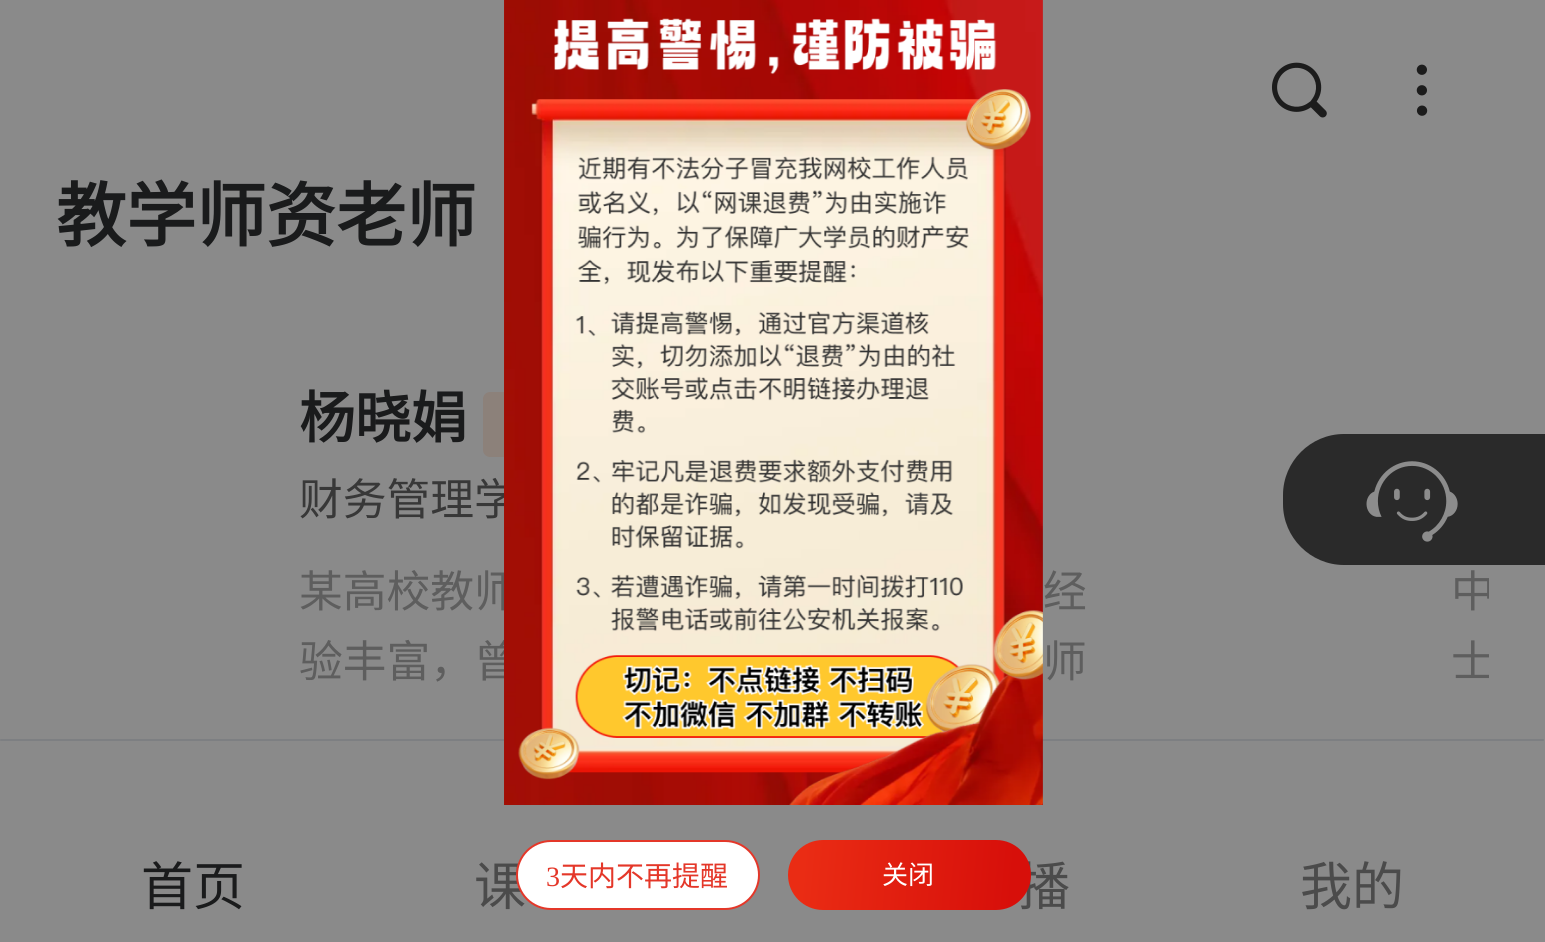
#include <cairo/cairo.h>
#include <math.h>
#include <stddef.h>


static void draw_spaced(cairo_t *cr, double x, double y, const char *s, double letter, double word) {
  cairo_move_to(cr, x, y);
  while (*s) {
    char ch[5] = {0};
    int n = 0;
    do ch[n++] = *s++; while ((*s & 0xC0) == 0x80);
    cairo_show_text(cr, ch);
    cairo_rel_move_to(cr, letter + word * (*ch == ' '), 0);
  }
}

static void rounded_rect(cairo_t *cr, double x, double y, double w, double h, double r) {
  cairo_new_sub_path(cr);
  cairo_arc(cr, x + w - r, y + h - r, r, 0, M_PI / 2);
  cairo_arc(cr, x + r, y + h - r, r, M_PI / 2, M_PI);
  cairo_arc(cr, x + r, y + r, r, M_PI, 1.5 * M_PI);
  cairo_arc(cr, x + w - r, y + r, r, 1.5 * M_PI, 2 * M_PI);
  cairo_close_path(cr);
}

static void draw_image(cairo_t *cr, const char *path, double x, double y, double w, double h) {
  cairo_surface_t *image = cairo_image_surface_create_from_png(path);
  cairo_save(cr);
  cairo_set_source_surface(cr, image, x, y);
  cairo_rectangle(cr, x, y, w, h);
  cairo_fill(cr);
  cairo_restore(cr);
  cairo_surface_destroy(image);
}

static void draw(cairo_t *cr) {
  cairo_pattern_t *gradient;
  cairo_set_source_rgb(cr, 138 / 255.0, 138 / 255.0, 138 / 255.0);
  cairo_paint(cr);
  draw_image(cr, "images/1.png", 1271, 62, 56, 56);
  draw_image(cr, "images/2.png", 1416, 64, 12, 52);
  cairo_set_source_rgb(cr, 140 / 255.0, 129 / 255.0, 122 / 255.0);
  rounded_rect(cr, 483, 392, 151, 65, 7);
  cairo_fill(cr);
  cairo_set_source_rgb(cr, 42 / 255.0, 42 / 255.0, 42 / 255.0);
  cairo_new_path(cr);
  cairo_move_to(cr, 1344, 434);
  cairo_line_to(cr, 1545, 434);
  cairo_line_to(cr, 1545, 565);
  cairo_line_to(cr, 1344, 565);
  cairo_curve_to(cr, 1310.5, 565, 1283, 537.5, 1283, 504);
  cairo_line_to(cr, 1283, 495);
  cairo_curve_to(cr, 1283, 461.5, 1310.5, 434, 1344, 434);
  cairo_close_path(cr);
  cairo_fill(cr);
  draw_image(cr, "images/3.png", 1366, 461, 92, 81);
  cairo_set_source_rgb(cr, 125 / 255.0, 127 / 255.0, 130 / 255.0);
  rounded_rect(cr, 0, 739, 1544, 2, 1);
  cairo_fill(cr);
  cairo_select_font_face(cr, "Noto Sans CJK SC", CAIRO_FONT_SLANT_NORMAL, CAIRO_FONT_WEIGHT_BOLD);
  cairo_set_font_size(cr, 70);
  cairo_set_source_rgb(cr, 26 / 255.0, 27 / 255.0, 28 / 255.0);
  cairo_move_to(cr, 56, 241);
  cairo_show_text(cr, "教学师资老师");
  cairo_set_font_size(cr, 56);
  cairo_move_to(cr, 299, 438);
  cairo_show_text(cr, "杨晓娟");
  cairo_select_font_face(cr, "Noto Sans CJK SC", CAIRO_FONT_SLANT_NORMAL, CAIRO_FONT_WEIGHT_NORMAL);
  cairo_set_font_size(cr, 43.75);
  cairo_set_source_rgb(cr, 56 / 255.0, 56 / 255.0, 56 / 255.0);
  cairo_move_to(cr, 299, 515);
  cairo_show_text(cr, "财务管理学");
  cairo_set_source_rgb(cr, 94 / 255.0, 94 / 255.0, 94 / 255.0);
  cairo_move_to(cr, 299, 607);
  cairo_show_text(cr, "某高校教师");
  cairo_move_to(cr, 1043, 607);
  cairo_show_text(cr, "经");
  cairo_move_to(cr, 299, 677);
  cairo_show_text(cr, "验丰富，曾");
  cairo_move_to(cr, 1043, 677);
  cairo_show_text(cr, "师");
  cairo_save(cr);
  cairo_rectangle(cr, 1451, 558, 38, 210);
  cairo_clip(cr);
  cairo_move_to(cr, 1451, 607);
  cairo_show_text(cr, "中");
  draw_spaced(cr, 1451, 677, "士", 0, 1);
  cairo_restore(cr);
  cairo_set_font_size(cr, 52);
  cairo_set_source_rgb(cr, 26 / 255.0, 27 / 255.0, 28 / 255.0);
  cairo_move_to(cr, 141, 905);
  cairo_show_text(cr, "首页");
  cairo_set_source_rgb(cr, 75 / 255.0, 75 / 255.0, 75 / 255.0);
  cairo_move_to(cr, 474, 905);
  cairo_show_text(cr, "课");
  cairo_move_to(cr, 1018, 905);
  cairo_show_text(cr, "播");
  cairo_move_to(cr, 1300, 905);
  cairo_show_text(cr, "我的");
  draw_image(cr, "images/4.png", 504, 0, 539, 805);
  cairo_set_source_rgb(cr, 1, 1, 1);
  rounded_rect(cr, 517, 841, 242, 68, 34);
  cairo_fill_preserve(cr);
  cairo_set_source_rgb(cr, 228 / 255.0, 55 / 255.0, 41 / 255.0);
  cairo_stroke(cr);
  cairo_select_font_face(cr, "Liberation Serif", CAIRO_FONT_SLANT_NORMAL, CAIRO_FONT_WEIGHT_NORMAL);
  cairo_set_font_size(cr, 28);
  cairo_move_to(cr, 546, 886);
  cairo_show_text(cr, "3");
  cairo_select_font_face(cr, "Noto Sans CJK SC", CAIRO_FONT_SLANT_NORMAL, CAIRO_FONT_WEIGHT_NORMAL);
  cairo_move_to(cr, 560, 886);
  cairo_show_text(cr, "天内不再提醒");
  gradient = cairo_pattern_create_linear(785, 864, 1033, 886);
  cairo_pattern_add_color_stop_rgba(gradient, 0.07, 234 / 255.0, 44 / 255.0, 20 / 255.0, 1);
  cairo_pattern_add_color_stop_rgba(gradient, 0.92, 215 / 255.0, 15 / 255.0, 10 / 255.0, 1);
  cairo_set_source(cr, gradient);
  cairo_pattern_destroy(gradient);
  rounded_rect(cr, 788, 840, 243, 70, 35);
  cairo_fill(cr);
  cairo_set_font_size(cr, 26);
  cairo_set_source_rgb(cr, 1, 1, 1);
  cairo_move_to(cr, 882, 884);
  cairo_show_text(cr, "关闭");
}

int main(void) {
  cairo_surface_t *surface = cairo_image_surface_create(CAIRO_FORMAT_RGB24, 1545, 942);
  cairo_t *cr = cairo_create(surface);
  cairo_font_options_t *options = cairo_font_options_create();
  cairo_font_options_set_hint_metrics(options, CAIRO_HINT_METRICS_OFF);
  cairo_font_options_set_hint_style(options, CAIRO_HINT_STYLE_NONE);
  cairo_set_font_options(cr, options);
  cairo_set_miter_limit(cr, 4);
  draw(cr);
  cairo_surface_write_to_png(surface, "out.png");
  cairo_font_options_destroy(options);
  cairo_destroy(cr);
  cairo_surface_destroy(surface);
  return 0;
}
